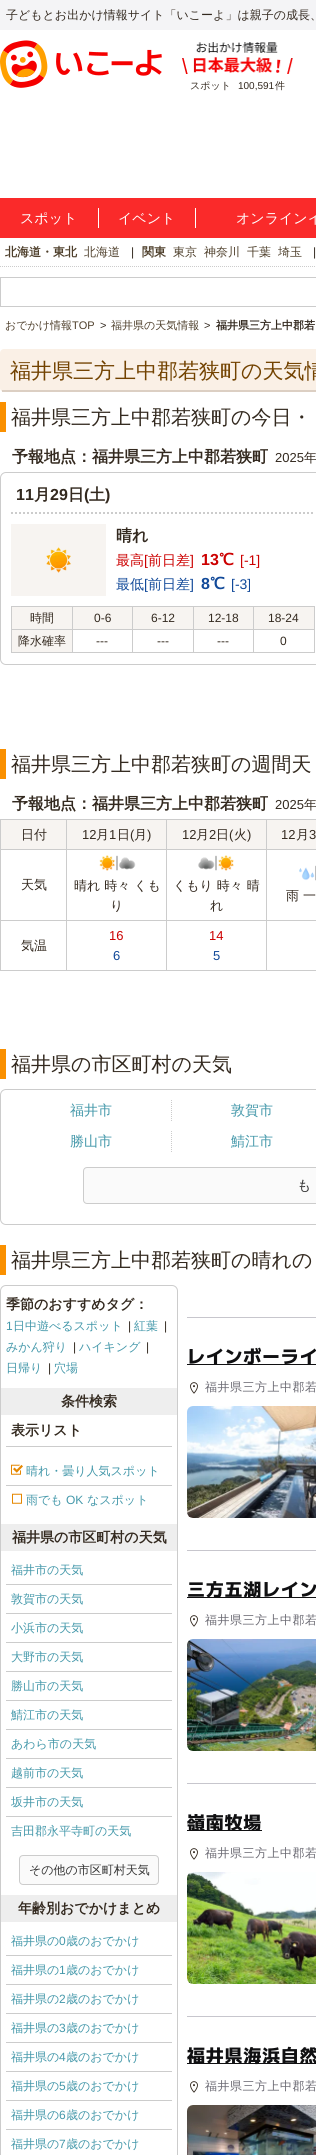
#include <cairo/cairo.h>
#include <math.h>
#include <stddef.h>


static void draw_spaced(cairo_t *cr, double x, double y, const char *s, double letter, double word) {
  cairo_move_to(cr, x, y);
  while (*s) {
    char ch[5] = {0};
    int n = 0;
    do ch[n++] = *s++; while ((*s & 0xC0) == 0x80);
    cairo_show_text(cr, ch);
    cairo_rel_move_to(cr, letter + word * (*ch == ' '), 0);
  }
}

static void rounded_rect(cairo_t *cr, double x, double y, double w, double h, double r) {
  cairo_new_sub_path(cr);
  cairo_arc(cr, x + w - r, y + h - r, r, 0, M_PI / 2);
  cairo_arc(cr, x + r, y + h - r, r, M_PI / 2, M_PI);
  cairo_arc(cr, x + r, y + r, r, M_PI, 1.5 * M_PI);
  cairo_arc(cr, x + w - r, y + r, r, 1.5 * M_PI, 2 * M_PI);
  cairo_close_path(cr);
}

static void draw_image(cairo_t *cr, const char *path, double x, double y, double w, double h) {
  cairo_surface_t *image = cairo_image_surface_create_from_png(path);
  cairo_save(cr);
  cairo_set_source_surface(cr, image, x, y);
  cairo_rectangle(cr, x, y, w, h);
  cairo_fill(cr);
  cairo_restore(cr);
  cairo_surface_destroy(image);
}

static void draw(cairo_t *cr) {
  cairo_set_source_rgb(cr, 1, 1, 1);
  cairo_paint(cr);
  cairo_set_source_rgb(cr, 244 / 255.0, 244 / 255.0, 246 / 255.0);
  cairo_rectangle(cr, 0, 0, 316, 30);
  cairo_fill(cr);
  draw_image(cr, "images/1.png", 0, 40, 162, 48);
  draw_image(cr, "images/2.png", 182, 42, 111, 32);
  cairo_set_source_rgb(cr, 250 / 255.0, 42 / 255.0, 42 / 255.0);
  cairo_rectangle(cr, 0, 198, 316, 40);
  cairo_fill(cr);
  cairo_set_source_rgb(cr, 1, 1, 1);
  cairo_rectangle(cr, 98, 208, 1, 20);
  cairo_fill(cr);
  cairo_rectangle(cr, 195, 208, 1, 20);
  cairo_fill(cr);
  cairo_new_path(cr);
  cairo_move_to(cr, 0, 266.5);
  cairo_line_to(cr, 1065, 266.5);
  cairo_set_source_rgb(cr, 204 / 255.0, 204 / 255.0, 204 / 255.0);
  cairo_set_line_width(cr, 1);
  cairo_set_dash(cr, (double[]){1, 1}, 2, 0);
  cairo_stroke(cr);
  cairo_rectangle(cr, 0.5, 277.5, 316, 29);
  cairo_set_dash(cr, NULL, 0, 0);
  cairo_stroke(cr);
  cairo_set_source_rgb(cr, 250 / 255.0, 240 / 255.0, 230 / 255.0);
  rounded_rect(cr, 0, 349, 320, 43, 4);
  cairo_fill(cr);
  cairo_set_source_rgb(cr, 220 / 255.0, 207 / 255.0, 195 / 255.0);
  cairo_rectangle(cr, 2, 390, 314, 2);
  cairo_fill(cr);
  cairo_set_source_rgb(cr, 250 / 255.0, 144 / 255.0, 0);
  cairo_rectangle(cr, 0, 402, 6, 30);
  cairo_fill(cr);
  rounded_rect(cr, 0.5, 472.5, 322, 192, 5.5);
  cairo_set_source_rgb(cr, 204 / 255.0, 204 / 255.0, 204 / 255.0);
  cairo_stroke(cr);
  cairo_new_path(cr);
  cairo_move_to(cr, 11, 513);
  cairo_line_to(cr, 315, 513);
  cairo_set_line_width(cr, 2);
  cairo_set_dash(cr, (double[]){2, 2}, 2, 0);
  cairo_stroke(cr);
  cairo_set_source_rgb(cr, 247 / 255.0, 244 / 255.0, 241 / 255.0);
  cairo_rectangle(cr, 11, 524, 95, 72);
  cairo_fill(cr);
  draw_image(cr, "images/3.png", 46, 547, 25, 26);
  cairo_set_source_rgb(cr, 204 / 255.0, 204 / 255.0, 204 / 255.0);
  cairo_rectangle(cr, 11, 606, 304, 1);
  cairo_fill(cr);
  cairo_rectangle(cr, 314, 606, 1, 47);
  cairo_fill(cr);
  cairo_rectangle(cr, 11, 652, 304, 1);
  cairo_fill(cr);
  cairo_rectangle(cr, 11, 606, 1, 47);
  cairo_fill(cr);
  cairo_rectangle(cr, 11, 629, 304, 1);
  cairo_fill(cr);
  cairo_set_source_rgb(cr, 247 / 255.0, 244 / 255.0, 241 / 255.0);
  cairo_rectangle(cr, 12, 607, 60, 22);
  cairo_fill(cr);
  cairo_rectangle(cr, 73, 607, 59, 22);
  cairo_fill(cr);
  cairo_rectangle(cr, 133, 607, 60, 22);
  cairo_fill(cr);
  cairo_rectangle(cr, 194, 607, 59, 22);
  cairo_fill(cr);
  cairo_rectangle(cr, 254, 607, 60, 22);
  cairo_fill(cr);
  cairo_rectangle(cr, 12, 630, 60, 22);
  cairo_fill(cr);
  cairo_set_source_rgb(cr, 204 / 255.0, 204 / 255.0, 204 / 255.0);
  cairo_rectangle(cr, 72, 606, 1, 47);
  cairo_fill(cr);
  cairo_rectangle(cr, 132, 606, 1, 47);
  cairo_fill(cr);
  cairo_rectangle(cr, 193, 606, 1, 47);
  cairo_fill(cr);
  cairo_rectangle(cr, 253, 606, 1, 47);
  cairo_fill(cr);
  cairo_set_source_rgb(cr, 250 / 255.0, 144 / 255.0, 0);
  cairo_rectangle(cr, 0, 749, 6, 30);
  cairo_fill(cr);
  cairo_set_source_rgb(cr, 204 / 255.0, 204 / 255.0, 204 / 255.0);
  cairo_rectangle(cr, 0, 819, 316, 1);
  cairo_fill(cr);
  cairo_rectangle(cr, 0, 970, 316, 1);
  cairo_fill(cr);
  cairo_rectangle(cr, 0, 819, 1, 152);
  cairo_fill(cr);
  cairo_rectangle(cr, 0, 849, 316, 1);
  cairo_fill(cr);
  cairo_set_source_rgb(cr, 247 / 255.0, 244 / 255.0, 241 / 255.0);
  cairo_rectangle(cr, 1, 820, 65, 29);
  cairo_fill(cr);
  cairo_rectangle(cr, 67, 820, 99, 29);
  cairo_fill(cr);
  cairo_rectangle(cr, 167, 820, 99, 29);
  cairo_fill(cr);
  cairo_rectangle(cr, 267, 820, 49, 29);
  cairo_fill(cr);
  draw_image(cr, "images/4.png", 99, 855, 37, 16);
  draw_image(cr, "images/5.png", 198, 855, 36, 16);
  draw_image(cr, "images/6.png", 299, 865, 17, 16);
  cairo_set_source_rgb(cr, 204 / 255.0, 204 / 255.0, 204 / 255.0);
  cairo_rectangle(cr, 0, 920, 316, 1);
  cairo_fill(cr);
  cairo_rectangle(cr, 66, 819, 1, 152);
  cairo_fill(cr);
  cairo_rectangle(cr, 166, 819, 1, 152);
  cairo_fill(cr);
  cairo_rectangle(cr, 266, 819, 1, 152);
  cairo_fill(cr);
  cairo_set_source_rgb(cr, 250 / 255.0, 144 / 255.0, 0);
  cairo_rectangle(cr, 0, 1049, 6, 30);
  cairo_fill(cr);
  rounded_rect(cr, 0.5, 1089.5, 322, 135, 5.5);
  cairo_set_source_rgb(cr, 204 / 255.0, 204 / 255.0, 204 / 255.0);
  cairo_set_line_width(cr, 1);
  cairo_set_dash(cr, NULL, 0, 0);
  cairo_stroke(cr);
  cairo_new_path(cr);
  cairo_move_to(cr, 171.5, 1100);
  cairo_line_to(cr, 171.5, 1121);
  cairo_set_dash(cr, (double[]){1, 1}, 2, 0);
  cairo_stroke(cr);
  cairo_new_path(cr);
  cairo_move_to(cr, 171.5, 1131);
  cairo_line_to(cr, 171.5, 1152);
  cairo_stroke(cr);
  cairo_set_source_rgb(cr, 250 / 255.0, 250 / 255.0, 250 / 255.0);
  rounded_rect(cr, 83.5, 1167.5, 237, 36, 3.5);
  cairo_fill_preserve(cr);
  cairo_set_source_rgb(cr, 204 / 255.0, 204 / 255.0, 204 / 255.0);
  cairo_set_dash(cr, NULL, 0, 0);
  cairo_stroke(cr);
  cairo_set_source_rgb(cr, 250 / 255.0, 144 / 255.0, 0);
  cairo_rectangle(cr, 0, 1245, 6, 30);
  cairo_fill(cr);
  rounded_rect(cr, 0.5, 1285.5, 177, 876, 5.5);
  cairo_set_source_rgb(cr, 204 / 255.0, 204 / 255.0, 204 / 255.0);
  cairo_stroke(cr);
  cairo_set_source_rgb(cr, 238 / 255.0, 238 / 255.0, 238 / 255.0);
  cairo_rectangle(cr, 1, 1388, 176, 27);
  cairo_fill(cr);
  cairo_set_source_rgb(cr, 204 / 255.0, 204 / 255.0, 204 / 255.0);
  cairo_rectangle(cr, 6, 1446, 166, 1);
  cairo_fill(cr);
  draw_image(cr, "images/7.png", 11, 1464, 12, 11);
  cairo_rectangle(cr, 6, 1485, 166, 1);
  cairo_fill(cr);
  draw_image(cr, "images/8.png", 12, 1493, 10, 11);
  cairo_set_source_rgb(cr, 238 / 255.0, 238 / 255.0, 238 / 255.0);
  cairo_rectangle(cr, 1, 1524, 176, 27);
  cairo_fill(cr);
  cairo_set_source_rgb(cr, 204 / 255.0, 204 / 255.0, 204 / 255.0);
  cairo_rectangle(cr, 6, 1584, 166, 1);
  cairo_fill(cr);
  cairo_rectangle(cr, 6, 1613, 166, 1);
  cairo_fill(cr);
  cairo_rectangle(cr, 6, 1642, 166, 1);
  cairo_fill(cr);
  cairo_rectangle(cr, 6, 1671, 166, 1);
  cairo_fill(cr);
  cairo_rectangle(cr, 6, 1700, 166, 1);
  cairo_fill(cr);
  cairo_rectangle(cr, 6, 1729, 166, 1);
  cairo_fill(cr);
  cairo_rectangle(cr, 6, 1758, 166, 1);
  cairo_fill(cr);
  cairo_rectangle(cr, 6, 1787, 166, 1);
  cairo_fill(cr);
  cairo_rectangle(cr, 6, 1816, 166, 1);
  cairo_fill(cr);
  cairo_set_source_rgb(cr, 250 / 255.0, 250 / 255.0, 250 / 255.0);
  rounded_rect(cr, 19.5, 1855.5, 139, 29, 3.5);
  cairo_fill_preserve(cr);
  cairo_set_source_rgb(cr, 204 / 255.0, 204 / 255.0, 204 / 255.0);
  cairo_stroke(cr);
  cairo_set_source_rgb(cr, 238 / 255.0, 238 / 255.0, 238 / 255.0);
  cairo_rectangle(cr, 1, 1895, 176, 27);
  cairo_fill(cr);
  cairo_set_source_rgb(cr, 204 / 255.0, 204 / 255.0, 204 / 255.0);
  cairo_rectangle(cr, 6, 1955, 166, 1);
  cairo_fill(cr);
  cairo_rectangle(cr, 6, 1984, 166, 1);
  cairo_fill(cr);
  cairo_rectangle(cr, 6, 2013, 166, 1);
  cairo_fill(cr);
  cairo_rectangle(cr, 6, 2042, 166, 1);
  cairo_fill(cr);
  cairo_rectangle(cr, 6, 2071, 166, 1);
  cairo_fill(cr);
  cairo_rectangle(cr, 6, 2100, 166, 1);
  cairo_fill(cr);
  cairo_rectangle(cr, 6, 2129, 166, 1);
  cairo_fill(cr);
  cairo_set_source_rgb(cr, 199 / 255.0, 198 / 255.0, 205 / 255.0);
  cairo_rectangle(cr, 187, 1317, 129, 1);
  cairo_fill(cr);
  cairo_set_source_rgb(cr, 16 / 255.0, 16 / 255.0, 18 / 255.0);
  cairo_rectangle(cr, 187, 1364, 129, 1);
  cairo_fill(cr);
  draw_image(cr, "images/9.png", 190, 1382, 8, 12);
  draw_image(cr, "images/10.png", 187, 1406, 129, 112);
  cairo_set_source_rgb(cr, 199 / 255.0, 198 / 255.0, 205 / 255.0);
  cairo_rectangle(cr, 187, 1550, 129, 1);
  cairo_fill(cr);
  cairo_set_source_rgb(cr, 16 / 255.0, 16 / 255.0, 18 / 255.0);
  cairo_rectangle(cr, 187, 1597, 129, 1);
  cairo_fill(cr);
  draw_image(cr, "images/9.png", 190, 1615, 8, 12);
  draw_image(cr, "images/11.png", 187, 1639, 129, 112);
  cairo_set_source_rgb(cr, 199 / 255.0, 198 / 255.0, 205 / 255.0);
  cairo_rectangle(cr, 187, 1783, 129, 1);
  cairo_fill(cr);
  cairo_set_source_rgb(cr, 16 / 255.0, 16 / 255.0, 18 / 255.0);
  cairo_rectangle(cr, 187, 1830, 75, 1);
  cairo_fill(cr);
  draw_image(cr, "images/9.png", 190, 1848, 8, 12);
  draw_image(cr, "images/12.png", 187, 1872, 129, 112);
  cairo_set_source_rgb(cr, 199 / 255.0, 198 / 255.0, 205 / 255.0);
  cairo_rectangle(cr, 187, 2016, 129, 1);
  cairo_fill(cr);
  cairo_set_source_rgb(cr, 16 / 255.0, 16 / 255.0, 18 / 255.0);
  cairo_rectangle(cr, 187, 2063, 129, 1);
  cairo_fill(cr);
  draw_image(cr, "images/9.png", 190, 2081, 8, 12);
  draw_image(cr, "images/13.png", 187, 2105, 129, 50);
  cairo_select_font_face(cr, "WenQuanYi Zen Hei Medium", CAIRO_FONT_SLANT_NORMAL, CAIRO_FONT_WEIGHT_NORMAL);
  cairo_set_font_size(cr, 12);
  cairo_set_source_rgb(cr, 51 / 255.0, 41 / 255.0, 31 / 255.0);
  cairo_move_to(cr, 6, 19);
  cairo_show_text(cr, "子どもとお出かけ情報サイト「いこーよ」は親子の成長、");
  cairo_set_font_size(cr, 10);
  cairo_move_to(cr, 190, 89);
  cairo_show_text(cr, "スポット");
  cairo_select_font_face(cr, "Liberation Sans", CAIRO_FONT_SLANT_NORMAL, CAIRO_FONT_WEIGHT_NORMAL);
  cairo_move_to(cr, 238, 89);
  cairo_show_text(cr, "100,591");
  cairo_select_font_face(cr, "WenQuanYi Zen Hei Medium", CAIRO_FONT_SLANT_NORMAL, CAIRO_FONT_WEIGHT_NORMAL);
  cairo_move_to(cr, 275, 89);
  cairo_show_text(cr, "件");
  cairo_set_font_size(cr, 14);
  cairo_set_source_rgb(cr, 1, 1, 1);
  cairo_move_to(cr, 20, 223);
  cairo_show_text(cr, "スポット");
  cairo_move_to(cr, 118, 223);
  cairo_show_text(cr, "イベント");
  cairo_move_to(cr, 236, 223);
  cairo_show_text(cr, "オンラインイ");
  cairo_select_font_face(cr, "WenQuanYi Zen Hei", CAIRO_FONT_SLANT_NORMAL, CAIRO_FONT_WEIGHT_BOLD);
  cairo_set_font_size(cr, 12);
  cairo_set_source_rgb(cr, 78 / 255.0, 63 / 255.0, 43 / 255.0);
  cairo_move_to(cr, 5, 256);
  cairo_show_text(cr, "北海道・東北");
  cairo_select_font_face(cr, "WenQuanYi Zen Hei Medium", CAIRO_FONT_SLANT_NORMAL, CAIRO_FONT_WEIGHT_NORMAL);
  cairo_move_to(cr, 84, 256);
  cairo_show_text(cr, "北海道");
  cairo_select_font_face(cr, "Liberation Sans", CAIRO_FONT_SLANT_NORMAL, CAIRO_FONT_WEIGHT_NORMAL);
  cairo_set_source_rgb(cr, 51 / 255.0, 41 / 255.0, 31 / 255.0);
  cairo_move_to(cr, 131, 256);
  cairo_show_text(cr, "|");
  cairo_select_font_face(cr, "WenQuanYi Zen Hei", CAIRO_FONT_SLANT_NORMAL, CAIRO_FONT_WEIGHT_BOLD);
  cairo_set_source_rgb(cr, 78 / 255.0, 63 / 255.0, 43 / 255.0);
  cairo_move_to(cr, 142, 256);
  cairo_show_text(cr, "関東");
  cairo_select_font_face(cr, "WenQuanYi Zen Hei Medium", CAIRO_FONT_SLANT_NORMAL, CAIRO_FONT_WEIGHT_NORMAL);
  cairo_move_to(cr, 173, 256);
  cairo_show_text(cr, "東京");
  cairo_move_to(cr, 204, 256);
  cairo_show_text(cr, "神奈川");
  cairo_move_to(cr, 247, 256);
  cairo_show_text(cr, "千葉");
  cairo_move_to(cr, 278, 256);
  cairo_show_text(cr, "埼玉");
  cairo_select_font_face(cr, "Liberation Sans", CAIRO_FONT_SLANT_NORMAL, CAIRO_FONT_WEIGHT_NORMAL);
  cairo_set_source_rgb(cr, 51 / 255.0, 41 / 255.0, 31 / 255.0);
  cairo_move_to(cr, 313, 256);
  cairo_show_text(cr, "|");
  cairo_select_font_face(cr, "WenQuanYi Zen Hei Medium", CAIRO_FONT_SLANT_NORMAL, CAIRO_FONT_WEIGHT_NORMAL);
  cairo_set_font_size(cr, 11);
  cairo_set_source_rgb(cr, 78 / 255.0, 63 / 255.0, 43 / 255.0);
  cairo_move_to(cr, 5, 329);
  cairo_show_text(cr, "おでかけ情報");
  cairo_select_font_face(cr, "Liberation Sans", CAIRO_FONT_SLANT_NORMAL, CAIRO_FONT_WEIGHT_NORMAL);
  cairo_move_to(cr, 72, 329);
  cairo_show_text(cr, "TOP");
  cairo_set_source_rgb(cr, 51 / 255.0, 41 / 255.0, 31 / 255.0);
  cairo_move_to(cr, 100, 329);
  cairo_show_text(cr, ">");
  cairo_select_font_face(cr, "WenQuanYi Zen Hei Medium", CAIRO_FONT_SLANT_NORMAL, CAIRO_FONT_WEIGHT_NORMAL);
  cairo_set_source_rgb(cr, 78 / 255.0, 63 / 255.0, 43 / 255.0);
  cairo_move_to(cr, 111, 329);
  cairo_show_text(cr, "福井県の天気情報");
  cairo_select_font_face(cr, "Liberation Sans", CAIRO_FONT_SLANT_NORMAL, CAIRO_FONT_WEIGHT_NORMAL);
  cairo_set_source_rgb(cr, 51 / 255.0, 41 / 255.0, 31 / 255.0);
  cairo_move_to(cr, 204, 329);
  cairo_show_text(cr, ">");
  cairo_select_font_face(cr, "WenQuanYi Zen Hei", CAIRO_FONT_SLANT_NORMAL, CAIRO_FONT_WEIGHT_BOLD);
  cairo_move_to(cr, 216, 329);
  cairo_show_text(cr, "福井県三方上中郡若");
  cairo_select_font_face(cr, "WenQuanYi Zen Hei Medium", CAIRO_FONT_SLANT_NORMAL, CAIRO_FONT_WEIGHT_NORMAL);
  cairo_set_font_size(cr, 21);
  cairo_set_source_rgb(cr, 114 / 255.0, 66 / 255.0, 0);
  cairo_move_to(cr, 10, 378);
  cairo_show_text(cr, "福井県三方上中郡若狭町の天気情");
  cairo_set_font_size(cr, 20);
  cairo_set_source_rgb(cr, 51 / 255.0, 41 / 255.0, 31 / 255.0);
  cairo_move_to(cr, 11, 424);
  cairo_show_text(cr, "福井県三方上中郡若狭町の今日・");
  cairo_select_font_face(cr, "WenQuanYi Zen Hei", CAIRO_FONT_SLANT_NORMAL, CAIRO_FONT_WEIGHT_BOLD);
  cairo_set_font_size(cr, 16);
  cairo_move_to(cr, 12, 462);
  cairo_show_text(cr, "予報地点：福井県三方上中郡若狭町");
  cairo_select_font_face(cr, "Liberation Sans", CAIRO_FONT_SLANT_NORMAL, CAIRO_FONT_WEIGHT_NORMAL);
  cairo_set_font_size(cr, 13);
  cairo_move_to(cr, 275, 462);
  cairo_show_text(cr, "2025");
  cairo_select_font_face(cr, "WenQuanYi Zen Hei Medium", CAIRO_FONT_SLANT_NORMAL, CAIRO_FONT_WEIGHT_NORMAL);
  cairo_move_to(cr, 304, 462);
  cairo_show_text(cr, "年");
  cairo_select_font_face(cr, "Liberation Sans", CAIRO_FONT_SLANT_NORMAL, CAIRO_FONT_WEIGHT_BOLD);
  cairo_set_font_size(cr, 16);
  cairo_move_to(cr, 16, 500);
  cairo_show_text(cr, "11");
  cairo_select_font_face(cr, "WenQuanYi Zen Hei", CAIRO_FONT_SLANT_NORMAL, CAIRO_FONT_WEIGHT_BOLD);
  cairo_move_to(cr, 34, 500);
  cairo_show_text(cr, "月");
  cairo_select_font_face(cr, "Liberation Sans", CAIRO_FONT_SLANT_NORMAL, CAIRO_FONT_WEIGHT_BOLD);
  cairo_move_to(cr, 50, 500);
  cairo_show_text(cr, "29");
  cairo_select_font_face(cr, "WenQuanYi Zen Hei", CAIRO_FONT_SLANT_NORMAL, CAIRO_FONT_WEIGHT_BOLD);
  cairo_move_to(cr, 68, 500);
  cairo_show_text(cr, "日");
  cairo_select_font_face(cr, "Liberation Sans", CAIRO_FONT_SLANT_NORMAL, CAIRO_FONT_WEIGHT_BOLD);
  cairo_move_to(cr, 84, 500);
  cairo_show_text(cr, "(");
  cairo_select_font_face(cr, "WenQuanYi Zen Hei", CAIRO_FONT_SLANT_NORMAL, CAIRO_FONT_WEIGHT_BOLD);
  cairo_move_to(cr, 89, 500);
  cairo_show_text(cr, "土");
  cairo_select_font_face(cr, "Liberation Sans", CAIRO_FONT_SLANT_NORMAL, CAIRO_FONT_WEIGHT_BOLD);
  cairo_move_to(cr, 105, 500);
  cairo_show_text(cr, ")");
  cairo_select_font_face(cr, "WenQuanYi Zen Hei", CAIRO_FONT_SLANT_NORMAL, CAIRO_FONT_WEIGHT_BOLD);
  cairo_move_to(cr, 116, 541);
  cairo_show_text(cr, "晴れ");
  cairo_select_font_face(cr, "WenQuanYi Zen Hei Medium", CAIRO_FONT_SLANT_NORMAL, CAIRO_FONT_WEIGHT_NORMAL);
  cairo_set_font_size(cr, 14);
  cairo_set_source_rgb(cr, 204 / 255.0, 0, 0);
  cairo_move_to(cr, 116, 565);
  cairo_show_text(cr, "最高");
  cairo_select_font_face(cr, "Liberation Sans", CAIRO_FONT_SLANT_NORMAL, CAIRO_FONT_WEIGHT_NORMAL);
  cairo_move_to(cr, 144, 565);
  cairo_show_text(cr, "[");
  cairo_select_font_face(cr, "WenQuanYi Zen Hei Medium", CAIRO_FONT_SLANT_NORMAL, CAIRO_FONT_WEIGHT_NORMAL);
  cairo_move_to(cr, 148, 565);
  cairo_show_text(cr, "前日差");
  cairo_select_font_face(cr, "Liberation Sans", CAIRO_FONT_SLANT_NORMAL, CAIRO_FONT_WEIGHT_NORMAL);
  cairo_move_to(cr, 190, 565);
  cairo_show_text(cr, "]");
  cairo_select_font_face(cr, "Liberation Sans", CAIRO_FONT_SLANT_NORMAL, CAIRO_FONT_WEIGHT_BOLD);
  cairo_set_font_size(cr, 16);
  cairo_move_to(cr, 201, 565);
  cairo_show_text(cr, "13");
  cairo_select_font_face(cr, "WenQuanYi Zen Hei", CAIRO_FONT_SLANT_NORMAL, CAIRO_FONT_WEIGHT_BOLD);
  cairo_move_to(cr, 219, 565);
  cairo_show_text(cr, "℃");
  cairo_select_font_face(cr, "Liberation Sans", CAIRO_FONT_SLANT_NORMAL, CAIRO_FONT_WEIGHT_NORMAL);
  cairo_set_font_size(cr, 14);
  cairo_move_to(cr, 240, 565);
  cairo_show_text(cr, "[-1]");
  cairo_select_font_face(cr, "WenQuanYi Zen Hei Medium", CAIRO_FONT_SLANT_NORMAL, CAIRO_FONT_WEIGHT_NORMAL);
  cairo_set_source_rgb(cr, 17 / 255.0, 73 / 255.0, 153 / 255.0);
  cairo_move_to(cr, 116, 589);
  cairo_show_text(cr, "最低");
  cairo_select_font_face(cr, "Liberation Sans", CAIRO_FONT_SLANT_NORMAL, CAIRO_FONT_WEIGHT_NORMAL);
  cairo_move_to(cr, 144, 589);
  cairo_show_text(cr, "[");
  cairo_select_font_face(cr, "WenQuanYi Zen Hei Medium", CAIRO_FONT_SLANT_NORMAL, CAIRO_FONT_WEIGHT_NORMAL);
  cairo_move_to(cr, 148, 589);
  cairo_show_text(cr, "前日差");
  cairo_select_font_face(cr, "Liberation Sans", CAIRO_FONT_SLANT_NORMAL, CAIRO_FONT_WEIGHT_NORMAL);
  cairo_move_to(cr, 190, 589);
  cairo_show_text(cr, "]");
  cairo_select_font_face(cr, "Liberation Sans", CAIRO_FONT_SLANT_NORMAL, CAIRO_FONT_WEIGHT_BOLD);
  cairo_set_font_size(cr, 16);
  cairo_move_to(cr, 201, 589);
  cairo_show_text(cr, "8");
  cairo_select_font_face(cr, "WenQuanYi Zen Hei", CAIRO_FONT_SLANT_NORMAL, CAIRO_FONT_WEIGHT_BOLD);
  cairo_move_to(cr, 210, 589);
  cairo_show_text(cr, "℃");
  cairo_select_font_face(cr, "Liberation Sans", CAIRO_FONT_SLANT_NORMAL, CAIRO_FONT_WEIGHT_NORMAL);
  cairo_set_font_size(cr, 14);
  cairo_move_to(cr, 231, 589);
  cairo_show_text(cr, "[-3]");
  cairo_select_font_face(cr, "WenQuanYi Zen Hei Medium", CAIRO_FONT_SLANT_NORMAL, CAIRO_FONT_WEIGHT_NORMAL);
  cairo_set_font_size(cr, 12);
  cairo_set_source_rgb(cr, 51 / 255.0, 41 / 255.0, 31 / 255.0);
  cairo_move_to(cr, 30, 622);
  cairo_show_text(cr, "時間");
  cairo_select_font_face(cr, "Liberation Sans", CAIRO_FONT_SLANT_NORMAL, CAIRO_FONT_WEIGHT_NORMAL);
  cairo_move_to(cr, 94, 622);
  cairo_show_text(cr, "0-6");
  cairo_move_to(cr, 151, 622);
  cairo_show_text(cr, "6-12");
  cairo_move_to(cr, 208, 622);
  cairo_show_text(cr, "12-18");
  cairo_move_to(cr, 268, 622);
  cairo_show_text(cr, "18-24");
  cairo_select_font_face(cr, "WenQuanYi Zen Hei Medium", CAIRO_FONT_SLANT_NORMAL, CAIRO_FONT_WEIGHT_NORMAL);
  cairo_move_to(cr, 18, 645);
  cairo_show_text(cr, "降水確率");
  cairo_select_font_face(cr, "Liberation Sans", CAIRO_FONT_SLANT_NORMAL, CAIRO_FONT_WEIGHT_NORMAL);
  cairo_move_to(cr, 96, 645);
  cairo_show_text(cr, "---");
  cairo_move_to(cr, 157, 645);
  cairo_show_text(cr, "---");
  cairo_move_to(cr, 217, 645);
  cairo_show_text(cr, "---");
  cairo_move_to(cr, 280, 645);
  cairo_show_text(cr, "0");
  cairo_select_font_face(cr, "WenQuanYi Zen Hei Medium", CAIRO_FONT_SLANT_NORMAL, CAIRO_FONT_WEIGHT_NORMAL);
  cairo_set_font_size(cr, 20);
  cairo_move_to(cr, 11, 771);
  cairo_show_text(cr, "福井県三方上中郡若狭町の週間天");
  cairo_select_font_face(cr, "WenQuanYi Zen Hei", CAIRO_FONT_SLANT_NORMAL, CAIRO_FONT_WEIGHT_BOLD);
  cairo_set_font_size(cr, 16);
  cairo_move_to(cr, 12, 809);
  cairo_show_text(cr, "予報地点：福井県三方上中郡若狭町");
  cairo_select_font_face(cr, "Liberation Sans", CAIRO_FONT_SLANT_NORMAL, CAIRO_FONT_WEIGHT_NORMAL);
  cairo_set_font_size(cr, 13);
  cairo_move_to(cr, 275, 809);
  cairo_show_text(cr, "2025");
  cairo_select_font_face(cr, "WenQuanYi Zen Hei Medium", CAIRO_FONT_SLANT_NORMAL, CAIRO_FONT_WEIGHT_NORMAL);
  cairo_move_to(cr, 304, 809);
  cairo_show_text(cr, "年");
  cairo_move_to(cr, 21, 839);
  cairo_show_text(cr, "日付");
  cairo_select_font_face(cr, "Liberation Sans", CAIRO_FONT_SLANT_NORMAL, CAIRO_FONT_WEIGHT_NORMAL);
  cairo_move_to(cr, 82, 839);
  cairo_show_text(cr, "12");
  cairo_select_font_face(cr, "WenQuanYi Zen Hei Medium", CAIRO_FONT_SLANT_NORMAL, CAIRO_FONT_WEIGHT_NORMAL);
  cairo_move_to(cr, 96, 839);
  cairo_show_text(cr, "月");
  cairo_select_font_face(cr, "Liberation Sans", CAIRO_FONT_SLANT_NORMAL, CAIRO_FONT_WEIGHT_NORMAL);
  cairo_move_to(cr, 109, 839);
  cairo_show_text(cr, "1");
  cairo_select_font_face(cr, "WenQuanYi Zen Hei Medium", CAIRO_FONT_SLANT_NORMAL, CAIRO_FONT_WEIGHT_NORMAL);
  cairo_move_to(cr, 117, 839);
  cairo_show_text(cr, "日");
  cairo_select_font_face(cr, "Liberation Sans", CAIRO_FONT_SLANT_NORMAL, CAIRO_FONT_WEIGHT_NORMAL);
  cairo_move_to(cr, 130, 839);
  cairo_show_text(cr, "(");
  cairo_select_font_face(cr, "WenQuanYi Zen Hei Medium", CAIRO_FONT_SLANT_NORMAL, CAIRO_FONT_WEIGHT_NORMAL);
  cairo_move_to(cr, 134, 839);
  cairo_show_text(cr, "月");
  cairo_select_font_face(cr, "Liberation Sans", CAIRO_FONT_SLANT_NORMAL, CAIRO_FONT_WEIGHT_NORMAL);
  cairo_move_to(cr, 147, 839);
  cairo_show_text(cr, ")");
  cairo_move_to(cr, 182, 839);
  cairo_show_text(cr, "12");
  cairo_select_font_face(cr, "WenQuanYi Zen Hei Medium", CAIRO_FONT_SLANT_NORMAL, CAIRO_FONT_WEIGHT_NORMAL);
  cairo_move_to(cr, 196, 839);
  cairo_show_text(cr, "月");
  cairo_select_font_face(cr, "Liberation Sans", CAIRO_FONT_SLANT_NORMAL, CAIRO_FONT_WEIGHT_NORMAL);
  cairo_move_to(cr, 209, 839);
  cairo_show_text(cr, "2");
  cairo_select_font_face(cr, "WenQuanYi Zen Hei Medium", CAIRO_FONT_SLANT_NORMAL, CAIRO_FONT_WEIGHT_NORMAL);
  cairo_move_to(cr, 216, 839);
  cairo_show_text(cr, "日");
  cairo_select_font_face(cr, "Liberation Sans", CAIRO_FONT_SLANT_NORMAL, CAIRO_FONT_WEIGHT_NORMAL);
  cairo_move_to(cr, 229, 839);
  cairo_show_text(cr, "(");
  cairo_select_font_face(cr, "WenQuanYi Zen Hei Medium", CAIRO_FONT_SLANT_NORMAL, CAIRO_FONT_WEIGHT_NORMAL);
  cairo_move_to(cr, 234, 839);
  cairo_show_text(cr, "火");
  cairo_select_font_face(cr, "Liberation Sans", CAIRO_FONT_SLANT_NORMAL, CAIRO_FONT_WEIGHT_NORMAL);
  cairo_move_to(cr, 247, 839);
  cairo_show_text(cr, ")");
  cairo_move_to(cr, 281, 839);
  cairo_show_text(cr, "12");
  cairo_select_font_face(cr, "WenQuanYi Zen Hei Medium", CAIRO_FONT_SLANT_NORMAL, CAIRO_FONT_WEIGHT_NORMAL);
  cairo_move_to(cr, 296, 839);
  cairo_show_text(cr, "月");
  cairo_select_font_face(cr, "Liberation Sans", CAIRO_FONT_SLANT_NORMAL, CAIRO_FONT_WEIGHT_NORMAL);
  cairo_move_to(cr, 309, 839);
  cairo_show_text(cr, "3");
  cairo_select_font_face(cr, "WenQuanYi Zen Hei Medium", CAIRO_FONT_SLANT_NORMAL, CAIRO_FONT_WEIGHT_NORMAL);
  cairo_move_to(cr, 21, 889);
  cairo_show_text(cr, "天気");
  cairo_move_to(cr, 74, 890);
  cairo_show_text(cr, "晴れ 時々 くも");
  cairo_move_to(cr, 110, 910);
  cairo_show_text(cr, "り");
  cairo_move_to(cr, 173, 890);
  cairo_show_text(cr, "くもり 時々 晴");
  cairo_move_to(cr, 210, 910);
  cairo_show_text(cr, "れ");
  cairo_move_to(cr, 286, 900);
  cairo_show_text(cr, "雨 一");
  cairo_move_to(cr, 21, 950);
  cairo_show_text(cr, "気温");
  cairo_select_font_face(cr, "Liberation Sans", CAIRO_FONT_SLANT_NORMAL, CAIRO_FONT_WEIGHT_NORMAL);
  cairo_set_source_rgb(cr, 204 / 255.0, 0, 0);
  cairo_move_to(cr, 109, 940);
  cairo_show_text(cr, "16");
  cairo_set_source_rgb(cr, 17 / 255.0, 73 / 255.0, 153 / 255.0);
  cairo_move_to(cr, 113, 960);
  cairo_show_text(cr, "6");
  cairo_set_source_rgb(cr, 204 / 255.0, 0, 0);
  cairo_move_to(cr, 209, 940);
  cairo_show_text(cr, "14");
  cairo_set_source_rgb(cr, 17 / 255.0, 73 / 255.0, 153 / 255.0);
  cairo_move_to(cr, 213, 960);
  cairo_show_text(cr, "5");
  cairo_select_font_face(cr, "WenQuanYi Zen Hei Medium", CAIRO_FONT_SLANT_NORMAL, CAIRO_FONT_WEIGHT_NORMAL);
  cairo_set_font_size(cr, 20);
  cairo_set_source_rgb(cr, 51 / 255.0, 41 / 255.0, 31 / 255.0);
  cairo_move_to(cr, 11, 1071);
  cairo_show_text(cr, "福井県の市区町村の天気");
  cairo_set_font_size(cr, 14);
  cairo_set_source_rgb(cr, 68 / 255.0, 152 / 255.0, 170 / 255.0);
  cairo_move_to(cr, 70, 1115);
  cairo_show_text(cr, "福井市");
  cairo_move_to(cr, 231, 1115);
  cairo_show_text(cr, "敦賀市");
  cairo_move_to(cr, 70, 1146);
  cairo_show_text(cr, "勝山市");
  cairo_move_to(cr, 231, 1146);
  cairo_show_text(cr, "鯖江市");
  cairo_set_source_rgb(cr, 51 / 255.0, 51 / 255.0, 51 / 255.0);
  cairo_move_to(cr, 297, 1190);
  cairo_show_text(cr, "も");
  cairo_set_font_size(cr, 20);
  cairo_set_source_rgb(cr, 51 / 255.0, 41 / 255.0, 31 / 255.0);
  cairo_move_to(cr, 11, 1267);
  cairo_show_text(cr, "福井県三方上中郡若狭町の晴れの");
  cairo_select_font_face(cr, "WenQuanYi Zen Hei", CAIRO_FONT_SLANT_NORMAL, CAIRO_FONT_WEIGHT_BOLD);
  cairo_set_font_size(cr, 14);
  cairo_move_to(cr, 6, 1309);
  cairo_show_text(cr, "季節のおすすめタグ：");
  cairo_select_font_face(cr, "Liberation Sans", CAIRO_FONT_SLANT_NORMAL, CAIRO_FONT_WEIGHT_NORMAL);
  cairo_set_font_size(cr, 12);
  cairo_set_source_rgb(cr, 68 / 255.0, 152 / 255.0, 170 / 255.0);
  cairo_move_to(cr, 6, 1330);
  cairo_show_text(cr, "1");
  cairo_select_font_face(cr, "WenQuanYi Zen Hei Medium", CAIRO_FONT_SLANT_NORMAL, CAIRO_FONT_WEIGHT_NORMAL);
  cairo_move_to(cr, 13, 1330);
  cairo_show_text(cr, "日中遊べるスポット");
  cairo_select_font_face(cr, "Liberation Sans", CAIRO_FONT_SLANT_NORMAL, CAIRO_FONT_WEIGHT_NORMAL);
  cairo_set_source_rgb(cr, 51 / 255.0, 41 / 255.0, 31 / 255.0);
  cairo_move_to(cr, 128, 1330);
  cairo_show_text(cr, "|");
  cairo_select_font_face(cr, "WenQuanYi Zen Hei Medium", CAIRO_FONT_SLANT_NORMAL, CAIRO_FONT_WEIGHT_NORMAL);
  cairo_set_source_rgb(cr, 68 / 255.0, 152 / 255.0, 170 / 255.0);
  cairo_move_to(cr, 134, 1330);
  cairo_show_text(cr, "紅葉");
  cairo_select_font_face(cr, "Liberation Sans", CAIRO_FONT_SLANT_NORMAL, CAIRO_FONT_WEIGHT_NORMAL);
  cairo_set_source_rgb(cr, 51 / 255.0, 41 / 255.0, 31 / 255.0);
  cairo_move_to(cr, 164, 1330);
  cairo_show_text(cr, "|");
  cairo_select_font_face(cr, "WenQuanYi Zen Hei Medium", CAIRO_FONT_SLANT_NORMAL, CAIRO_FONT_WEIGHT_NORMAL);
  cairo_set_source_rgb(cr, 68 / 255.0, 152 / 255.0, 170 / 255.0);
  cairo_move_to(cr, 6, 1351);
  cairo_show_text(cr, "みかん狩り");
  cairo_select_font_face(cr, "Liberation Sans", CAIRO_FONT_SLANT_NORMAL, CAIRO_FONT_WEIGHT_NORMAL);
  cairo_set_source_rgb(cr, 51 / 255.0, 41 / 255.0, 31 / 255.0);
  cairo_move_to(cr, 73, 1351);
  cairo_show_text(cr, "|");
  cairo_select_font_face(cr, "WenQuanYi Zen Hei Medium", CAIRO_FONT_SLANT_NORMAL, CAIRO_FONT_WEIGHT_NORMAL);
  cairo_set_source_rgb(cr, 68 / 255.0, 152 / 255.0, 170 / 255.0);
  cairo_move_to(cr, 79, 1351);
  cairo_show_text(cr, "ハイキング");
  cairo_select_font_face(cr, "Liberation Sans", CAIRO_FONT_SLANT_NORMAL, CAIRO_FONT_WEIGHT_NORMAL);
  cairo_set_source_rgb(cr, 51 / 255.0, 41 / 255.0, 31 / 255.0);
  cairo_move_to(cr, 146, 1351);
  cairo_show_text(cr, "|");
  cairo_select_font_face(cr, "WenQuanYi Zen Hei Medium", CAIRO_FONT_SLANT_NORMAL, CAIRO_FONT_WEIGHT_NORMAL);
  cairo_set_source_rgb(cr, 68 / 255.0, 152 / 255.0, 170 / 255.0);
  cairo_move_to(cr, 6, 1372);
  cairo_show_text(cr, "日帰り");
  cairo_select_font_face(cr, "Liberation Sans", CAIRO_FONT_SLANT_NORMAL, CAIRO_FONT_WEIGHT_NORMAL);
  cairo_set_source_rgb(cr, 51 / 255.0, 41 / 255.0, 31 / 255.0);
  cairo_move_to(cr, 48, 1372);
  cairo_show_text(cr, "|");
  cairo_select_font_face(cr, "WenQuanYi Zen Hei Medium", CAIRO_FONT_SLANT_NORMAL, CAIRO_FONT_WEIGHT_NORMAL);
  cairo_set_source_rgb(cr, 68 / 255.0, 152 / 255.0, 170 / 255.0);
  cairo_move_to(cr, 54, 1372);
  cairo_show_text(cr, "穴場");
  cairo_select_font_face(cr, "WenQuanYi Zen Hei", CAIRO_FONT_SLANT_NORMAL, CAIRO_FONT_WEIGHT_BOLD);
  cairo_set_font_size(cr, 14);
  cairo_set_source_rgb(cr, 51 / 255.0, 41 / 255.0, 31 / 255.0);
  cairo_move_to(cr, 61, 1406);
  cairo_show_text(cr, "条件検索");
  cairo_move_to(cr, 11, 1435);
  cairo_show_text(cr, "表示リスト");
  cairo_select_font_face(cr, "WenQuanYi Zen Hei Medium", CAIRO_FONT_SLANT_NORMAL, CAIRO_FONT_WEIGHT_NORMAL);
  cairo_set_font_size(cr, 12);
  cairo_set_source_rgb(cr, 68 / 255.0, 152 / 255.0, 170 / 255.0);
  cairo_move_to(cr, 26, 1475);
  cairo_show_text(cr, "晴れ・曇り人気スポット");
  cairo_move_to(cr, 26, 1504);
  cairo_show_text(cr, "雨でも");
  cairo_select_font_face(cr, "Liberation Sans", CAIRO_FONT_SLANT_NORMAL, CAIRO_FONT_WEIGHT_NORMAL);
  cairo_move_to(cr, 66, 1504);
  cairo_show_text(cr, "OK");
  cairo_select_font_face(cr, "WenQuanYi Zen Hei Medium", CAIRO_FONT_SLANT_NORMAL, CAIRO_FONT_WEIGHT_NORMAL);
  cairo_move_to(cr, 87, 1504);
  cairo_show_text(cr, "なスポット");
  cairo_select_font_face(cr, "WenQuanYi Zen Hei", CAIRO_FONT_SLANT_NORMAL, CAIRO_FONT_WEIGHT_BOLD);
  cairo_set_font_size(cr, 14);
  cairo_set_source_rgb(cr, 51 / 255.0, 41 / 255.0, 31 / 255.0);
  cairo_move_to(cr, 12, 1542);
  cairo_show_text(cr, "福井県の市区町村の天気");
  cairo_select_font_face(cr, "WenQuanYi Zen Hei Medium", CAIRO_FONT_SLANT_NORMAL, CAIRO_FONT_WEIGHT_NORMAL);
  cairo_set_font_size(cr, 12);
  cairo_set_source_rgb(cr, 68 / 255.0, 152 / 255.0, 170 / 255.0);
  cairo_move_to(cr, 11, 1574);
  cairo_show_text(cr, "福井市の天気");
  cairo_move_to(cr, 11, 1603);
  cairo_show_text(cr, "敦賀市の天気");
  cairo_move_to(cr, 11, 1632);
  cairo_show_text(cr, "小浜市の天気");
  cairo_move_to(cr, 11, 1661);
  cairo_show_text(cr, "大野市の天気");
  cairo_move_to(cr, 11, 1690);
  cairo_show_text(cr, "勝山市の天気");
  cairo_move_to(cr, 11, 1719);
  cairo_show_text(cr, "鯖江市の天気");
  cairo_move_to(cr, 11, 1748);
  cairo_show_text(cr, "あわら市の天気");
  cairo_move_to(cr, 11, 1777);
  cairo_show_text(cr, "越前市の天気");
  cairo_move_to(cr, 11, 1806);
  cairo_show_text(cr, "坂井市の天気");
  cairo_move_to(cr, 11, 1835);
  cairo_show_text(cr, "吉田郡永平寺町の天気");
  cairo_set_source_rgb(cr, 51 / 255.0, 51 / 255.0, 51 / 255.0);
  cairo_move_to(cr, 29, 1874);
  cairo_show_text(cr, "その他の市区町村天気");
  cairo_select_font_face(cr, "WenQuanYi Zen Hei", CAIRO_FONT_SLANT_NORMAL, CAIRO_FONT_WEIGHT_BOLD);
  cairo_set_font_size(cr, 14);
  cairo_set_source_rgb(cr, 51 / 255.0, 41 / 255.0, 31 / 255.0);
  cairo_move_to(cr, 18, 1913);
  cairo_show_text(cr, "年齢別おでかけまとめ");
  cairo_select_font_face(cr, "WenQuanYi Zen Hei Medium", CAIRO_FONT_SLANT_NORMAL, CAIRO_FONT_WEIGHT_NORMAL);
  cairo_set_font_size(cr, 12);
  cairo_set_source_rgb(cr, 68 / 255.0, 152 / 255.0, 170 / 255.0);
  cairo_move_to(cr, 11, 1945);
  cairo_show_text(cr, "福井県の");
  cairo_select_font_face(cr, "Liberation Sans", CAIRO_FONT_SLANT_NORMAL, CAIRO_FONT_WEIGHT_NORMAL);
  cairo_move_to(cr, 59, 1945);
  cairo_show_text(cr, "0");
  cairo_select_font_face(cr, "WenQuanYi Zen Hei Medium", CAIRO_FONT_SLANT_NORMAL, CAIRO_FONT_WEIGHT_NORMAL);
  cairo_move_to(cr, 66, 1945);
  cairo_show_text(cr, "歳のおでかけ");
  cairo_move_to(cr, 11, 1974);
  cairo_show_text(cr, "福井県の");
  cairo_select_font_face(cr, "Liberation Sans", CAIRO_FONT_SLANT_NORMAL, CAIRO_FONT_WEIGHT_NORMAL);
  cairo_move_to(cr, 59, 1974);
  cairo_show_text(cr, "1");
  cairo_select_font_face(cr, "WenQuanYi Zen Hei Medium", CAIRO_FONT_SLANT_NORMAL, CAIRO_FONT_WEIGHT_NORMAL);
  cairo_move_to(cr, 66, 1974);
  cairo_show_text(cr, "歳のおでかけ");
  cairo_move_to(cr, 11, 2003);
  cairo_show_text(cr, "福井県の");
  cairo_select_font_face(cr, "Liberation Sans", CAIRO_FONT_SLANT_NORMAL, CAIRO_FONT_WEIGHT_NORMAL);
  cairo_move_to(cr, 59, 2003);
  cairo_show_text(cr, "2");
  cairo_select_font_face(cr, "WenQuanYi Zen Hei Medium", CAIRO_FONT_SLANT_NORMAL, CAIRO_FONT_WEIGHT_NORMAL);
  cairo_move_to(cr, 66, 2003);
  cairo_show_text(cr, "歳のおでかけ");
  cairo_move_to(cr, 11, 2032);
  cairo_show_text(cr, "福井県の");
  cairo_select_font_face(cr, "Liberation Sans", CAIRO_FONT_SLANT_NORMAL, CAIRO_FONT_WEIGHT_NORMAL);
  cairo_move_to(cr, 59, 2032);
  cairo_show_text(cr, "3");
  cairo_select_font_face(cr, "WenQuanYi Zen Hei Medium", CAIRO_FONT_SLANT_NORMAL, CAIRO_FONT_WEIGHT_NORMAL);
  cairo_move_to(cr, 66, 2032);
  cairo_show_text(cr, "歳のおでかけ");
  cairo_move_to(cr, 11, 2061);
  cairo_show_text(cr, "福井県の");
  cairo_select_font_face(cr, "Liberation Sans", CAIRO_FONT_SLANT_NORMAL, CAIRO_FONT_WEIGHT_NORMAL);
  cairo_move_to(cr, 59, 2061);
  cairo_show_text(cr, "4");
  cairo_select_font_face(cr, "WenQuanYi Zen Hei Medium", CAIRO_FONT_SLANT_NORMAL, CAIRO_FONT_WEIGHT_NORMAL);
  cairo_move_to(cr, 66, 2061);
  cairo_show_text(cr, "歳のおでかけ");
  cairo_move_to(cr, 11, 2090);
  cairo_show_text(cr, "福井県の");
  cairo_select_font_face(cr, "Liberation Sans", CAIRO_FONT_SLANT_NORMAL, CAIRO_FONT_WEIGHT_NORMAL);
  cairo_move_to(cr, 59, 2090);
  cairo_show_text(cr, "5");
  cairo_select_font_face(cr, "WenQuanYi Zen Hei Medium", CAIRO_FONT_SLANT_NORMAL, CAIRO_FONT_WEIGHT_NORMAL);
  cairo_move_to(cr, 66, 2090);
  cairo_show_text(cr, "歳のおでかけ");
  cairo_move_to(cr, 11, 2119);
  cairo_show_text(cr, "福井県の");
  cairo_select_font_face(cr, "Liberation Sans", CAIRO_FONT_SLANT_NORMAL, CAIRO_FONT_WEIGHT_NORMAL);
  cairo_move_to(cr, 59, 2119);
  cairo_show_text(cr, "6");
  cairo_select_font_face(cr, "WenQuanYi Zen Hei Medium", CAIRO_FONT_SLANT_NORMAL, CAIRO_FONT_WEIGHT_NORMAL);
  cairo_move_to(cr, 66, 2119);
  cairo_show_text(cr, "歳のおでかけ");
  cairo_move_to(cr, 11, 2148);
  cairo_show_text(cr, "福井県の");
  cairo_select_font_face(cr, "Liberation Sans", CAIRO_FONT_SLANT_NORMAL, CAIRO_FONT_WEIGHT_NORMAL);
  cairo_move_to(cr, 59, 2148);
  cairo_show_text(cr, "7");
  cairo_select_font_face(cr, "WenQuanYi Zen Hei Medium", CAIRO_FONT_SLANT_NORMAL, CAIRO_FONT_WEIGHT_NORMAL);
  cairo_move_to(cr, 66, 2148);
  cairo_show_text(cr, "歳のおでかけ");
  cairo_select_font_face(cr, "M PLUS 2 Thin", CAIRO_FONT_SLANT_NORMAL, CAIRO_FONT_WEIGHT_NORMAL);
  cairo_set_font_size(cr, 18);
  cairo_set_source_rgb(cr, 16 / 255.0, 16 / 255.0, 18 / 255.0);
  draw_spaced(cr, 187, 1363, "レインボーライ", 0.75, 0);
  cairo_select_font_face(cr, "WenQuanYi Zen Hei Medium", CAIRO_FONT_SLANT_NORMAL, CAIRO_FONT_WEIGHT_NORMAL);
  cairo_set_font_size(cr, 12);
  cairo_set_source_rgb(cr, 106 / 255.0, 105 / 255.0, 114 / 255.0);
  draw_spaced(cr, 205, 1391, "福井県三方上中郡若", 0.5, 0);
  cairo_select_font_face(cr, "M PLUS 2 Thin", CAIRO_FONT_SLANT_NORMAL, CAIRO_FONT_WEIGHT_NORMAL);
  cairo_set_font_size(cr, 18);
  cairo_set_source_rgb(cr, 16 / 255.0, 16 / 255.0, 18 / 255.0);
  draw_spaced(cr, 187, 1596, "三方五湖レイン", 0.75, 0);
  cairo_select_font_face(cr, "WenQuanYi Zen Hei Medium", CAIRO_FONT_SLANT_NORMAL, CAIRO_FONT_WEIGHT_NORMAL);
  cairo_set_font_size(cr, 12);
  cairo_set_source_rgb(cr, 106 / 255.0, 105 / 255.0, 114 / 255.0);
  draw_spaced(cr, 205, 1624, "福井県三方上中郡若", 0.5, 0);
  cairo_select_font_face(cr, "M PLUS 2 Thin", CAIRO_FONT_SLANT_NORMAL, CAIRO_FONT_WEIGHT_NORMAL);
  cairo_set_font_size(cr, 18);
  cairo_set_source_rgb(cr, 16 / 255.0, 16 / 255.0, 18 / 255.0);
  draw_spaced(cr, 187, 1829, "嶺南牧場", 0.75, 0);
  cairo_select_font_face(cr, "WenQuanYi Zen Hei Medium", CAIRO_FONT_SLANT_NORMAL, CAIRO_FONT_WEIGHT_NORMAL);
  cairo_set_font_size(cr, 12);
  cairo_set_source_rgb(cr, 106 / 255.0, 105 / 255.0, 114 / 255.0);
  draw_spaced(cr, 205, 1857, "福井県三方上中郡若", 0.5, 0);
  cairo_select_font_face(cr, "M PLUS 2 Thin", CAIRO_FONT_SLANT_NORMAL, CAIRO_FONT_WEIGHT_NORMAL);
  cairo_set_font_size(cr, 18);
  cairo_set_source_rgb(cr, 16 / 255.0, 16 / 255.0, 18 / 255.0);
  draw_spaced(cr, 187, 2062, "福井県海浜自然", 0.75, 0);
  cairo_select_font_face(cr, "WenQuanYi Zen Hei Medium", CAIRO_FONT_SLANT_NORMAL, CAIRO_FONT_WEIGHT_NORMAL);
  cairo_set_font_size(cr, 12);
  cairo_set_source_rgb(cr, 106 / 255.0, 105 / 255.0, 114 / 255.0);
  draw_spaced(cr, 205, 2090, "福井県三方上中郡若", 0.5, 0);
}

int main(void) {
  cairo_surface_t *surface = cairo_image_surface_create(CAIRO_FORMAT_RGB24, 316, 2155);
  cairo_t *cr = cairo_create(surface);
  cairo_font_options_t *options = cairo_font_options_create();
  cairo_font_options_set_hint_metrics(options, CAIRO_HINT_METRICS_OFF);
  cairo_font_options_set_hint_style(options, CAIRO_HINT_STYLE_NONE);
  cairo_set_font_options(cr, options);
  cairo_set_miter_limit(cr, 4);
  draw(cr);
  cairo_surface_write_to_png(surface, "out.png");
  cairo_font_options_destroy(options);
  cairo_destroy(cr);
  cairo_surface_destroy(surface);
  return 0;
}
